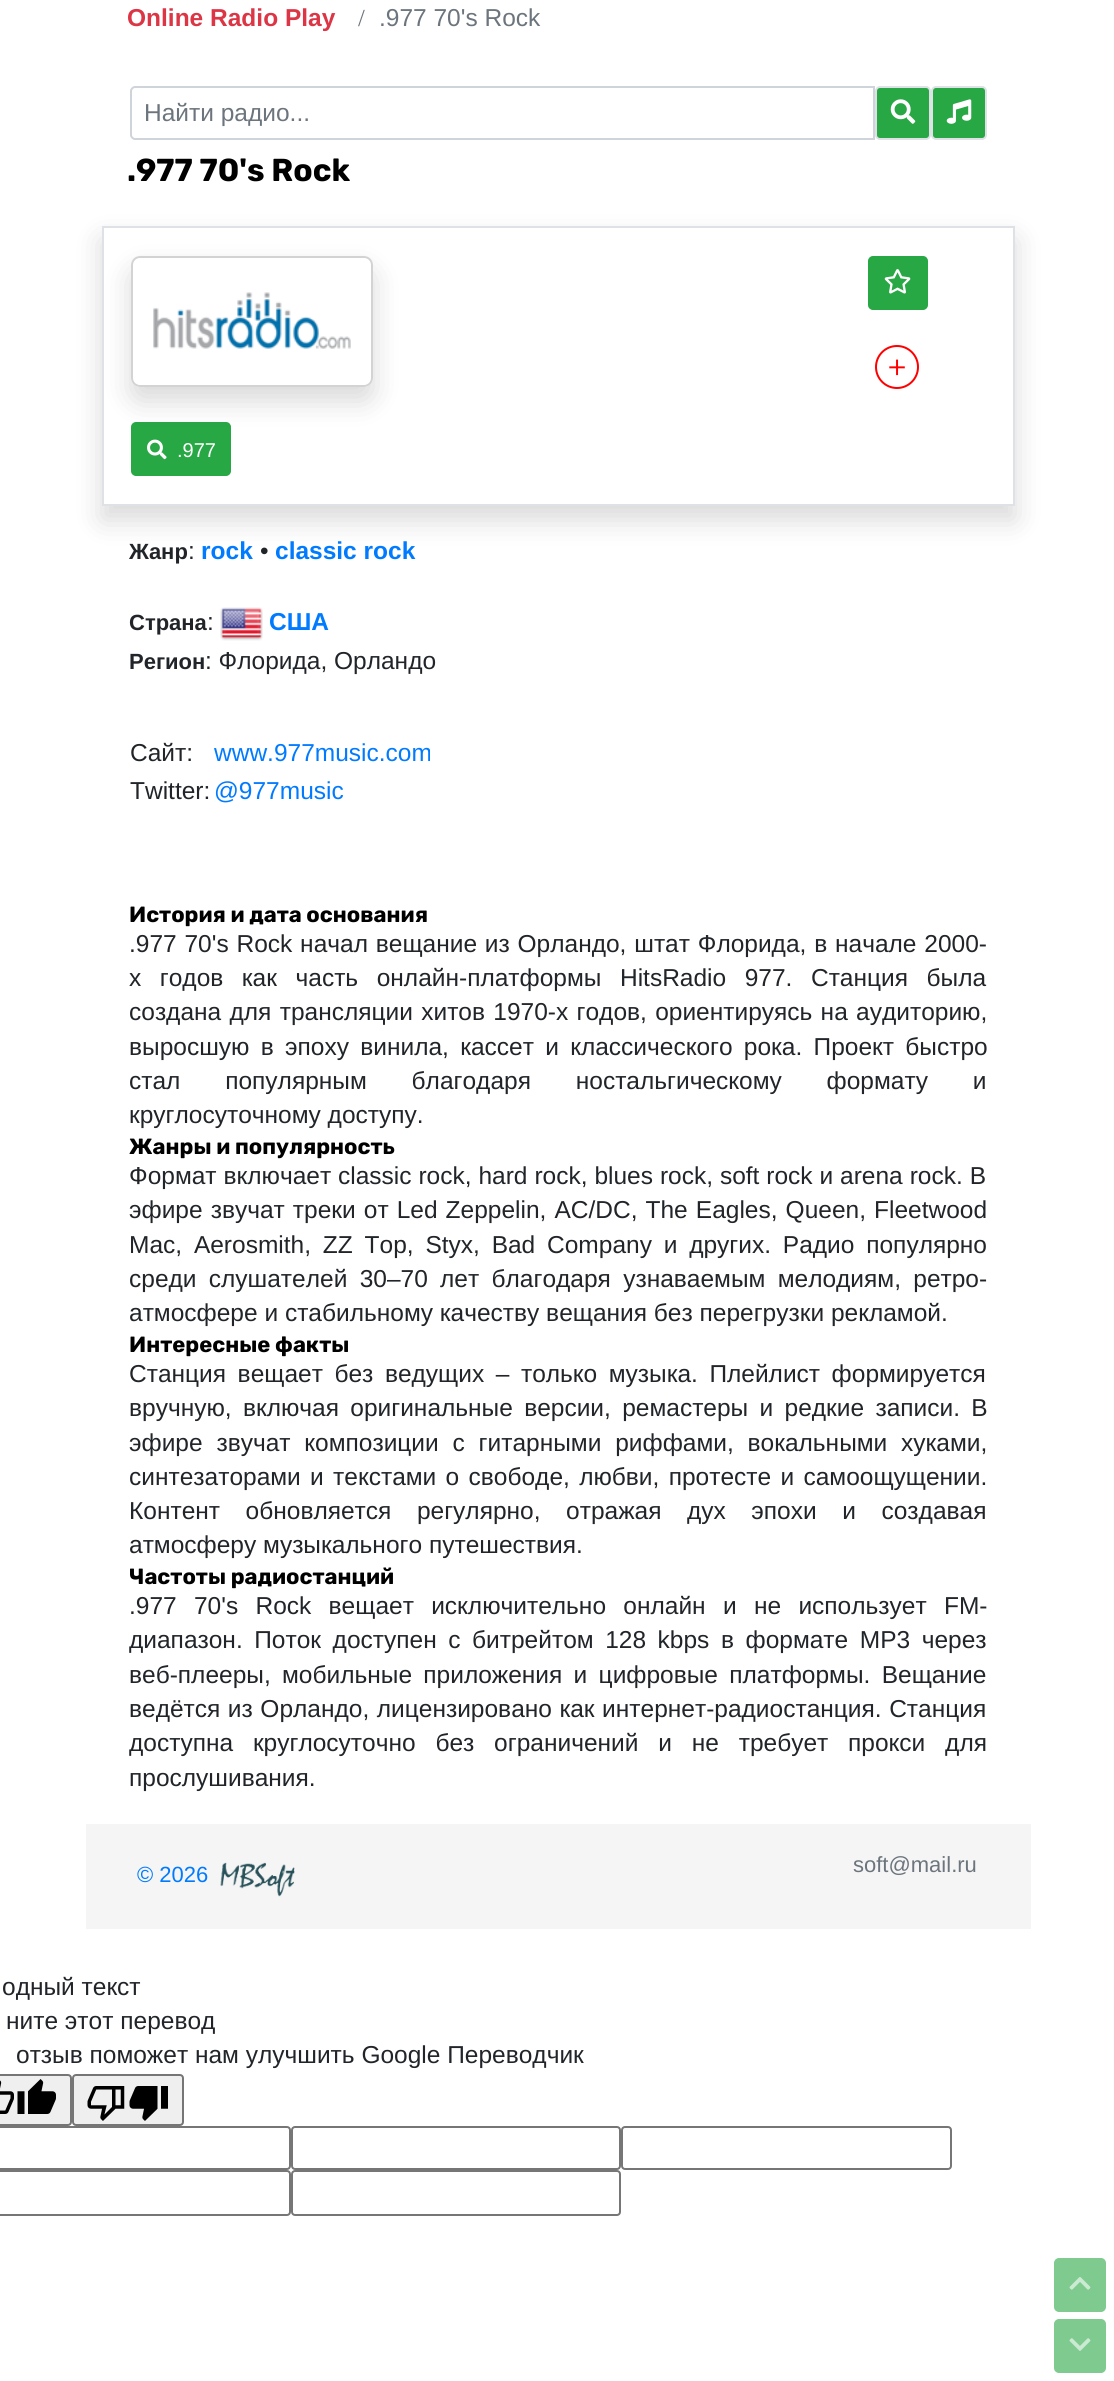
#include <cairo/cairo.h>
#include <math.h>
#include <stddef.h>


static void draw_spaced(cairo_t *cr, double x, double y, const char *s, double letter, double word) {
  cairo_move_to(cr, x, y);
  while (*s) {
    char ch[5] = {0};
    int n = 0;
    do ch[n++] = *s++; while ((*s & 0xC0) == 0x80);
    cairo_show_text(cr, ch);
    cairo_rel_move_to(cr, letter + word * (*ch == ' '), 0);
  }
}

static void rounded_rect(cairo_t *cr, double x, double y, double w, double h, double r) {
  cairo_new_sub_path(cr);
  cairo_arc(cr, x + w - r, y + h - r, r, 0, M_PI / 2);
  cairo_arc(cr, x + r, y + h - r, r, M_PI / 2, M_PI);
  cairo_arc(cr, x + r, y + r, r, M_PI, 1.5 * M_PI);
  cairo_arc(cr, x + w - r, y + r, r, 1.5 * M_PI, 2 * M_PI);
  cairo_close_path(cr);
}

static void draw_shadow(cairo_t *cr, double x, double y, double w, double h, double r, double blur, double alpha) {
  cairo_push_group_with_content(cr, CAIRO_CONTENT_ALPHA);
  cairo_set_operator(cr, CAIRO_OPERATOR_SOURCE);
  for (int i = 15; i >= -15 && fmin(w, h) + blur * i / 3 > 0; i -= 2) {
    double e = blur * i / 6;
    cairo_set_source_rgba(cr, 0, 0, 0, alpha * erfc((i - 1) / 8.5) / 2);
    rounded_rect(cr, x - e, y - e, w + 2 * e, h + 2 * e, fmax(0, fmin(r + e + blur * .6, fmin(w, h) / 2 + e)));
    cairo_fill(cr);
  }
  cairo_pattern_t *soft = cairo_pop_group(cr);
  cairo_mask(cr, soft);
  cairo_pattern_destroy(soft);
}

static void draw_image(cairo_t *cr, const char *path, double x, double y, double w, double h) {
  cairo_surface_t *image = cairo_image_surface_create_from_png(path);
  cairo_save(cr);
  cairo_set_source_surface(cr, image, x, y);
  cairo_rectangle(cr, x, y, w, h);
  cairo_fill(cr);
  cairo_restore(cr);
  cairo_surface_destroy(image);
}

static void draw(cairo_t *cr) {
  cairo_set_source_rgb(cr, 1, 1, 1);
  cairo_paint(cr);
  cairo_new_path(cr);
  cairo_move_to(cr, 135, 87);
  cairo_line_to(cr, 874, 87);
  cairo_line_to(cr, 874, 139);
  cairo_line_to(cr, 135, 139);
  cairo_curve_to(cr, 133, 139, 131, 137, 131, 135);
  cairo_line_to(cr, 131, 91);
  cairo_curve_to(cr, 131, 89, 133, 87, 135, 87);
  cairo_close_path(cr);
  cairo_set_source_rgb(cr, 206 / 255.0, 212 / 255.0, 218 / 255.0);
  cairo_stroke(cr);
  cairo_set_source_rgb(cr, 40 / 255.0, 167 / 255.0, 69 / 255.0);
  rounded_rect(cr, 876, 87, 54, 52, 4);
  cairo_fill_preserve(cr);
  cairo_set_source_rgb(cr, 222 / 255.0, 226 / 255.0, 230 / 255.0);
  cairo_stroke(cr);
  draw_image(cr, "images/1.png", 890, 99, 26, 25);
  cairo_set_source_rgb(cr, 40 / 255.0, 167 / 255.0, 69 / 255.0);
  rounded_rect(cr, 932, 87, 54, 52, 4);
  cairo_fill_preserve(cr);
  cairo_set_source_rgb(cr, 222 / 255.0, 226 / 255.0, 230 / 255.0);
  cairo_stroke(cr);
  draw_image(cr, "images/2.png", 946, 99, 26, 25);
  cairo_save(cr);
  cairo_set_fill_rule(cr, CAIRO_FILL_RULE_EVEN_ODD);
  cairo_new_path(cr);
  cairo_move_to(cr, 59, 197);
  cairo_line_to(cr, 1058, 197);
  cairo_line_to(cr, 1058, 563);
  cairo_line_to(cr, 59, 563);
  cairo_close_path(cr);
  cairo_move_to(cr, 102, 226);
  cairo_line_to(cr, 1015, 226);
  cairo_line_to(cr, 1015, 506);
  cairo_line_to(cr, 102, 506);
  cairo_close_path(cr);
  cairo_clip(cr);
  cairo_set_source_rgb(cr, 0, 0, 0);
  draw_shadow(cr, 102, 240, 913, 280, 0, 14, 0.15);
  cairo_restore(cr);
  cairo_rectangle(cr, 103, 227, 911, 278);
  cairo_stroke(cr);
  cairo_set_source_rgb(cr, 40 / 255.0, 167 / 255.0, 69 / 255.0);
  rounded_rect(cr, 132, 423, 98, 52, 4);
  cairo_fill_preserve(cr);
  cairo_stroke(cr);
  draw_image(cr, "images/5.png", 147, 439, 20, 21);
  cairo_save(cr);
  cairo_set_fill_rule(cr, CAIRO_FILL_RULE_EVEN_ODD);
  cairo_new_path(cr);
  cairo_move_to(cr, 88, 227);
  cairo_line_to(cr, 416, 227);
  cairo_line_to(cr, 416, 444);
  cairo_line_to(cr, 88, 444);
  cairo_close_path(cr);
  cairo_move_to(cr, 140, 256);
  cairo_line_to(cr, 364, 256);
  cairo_curve_to(cr, 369, 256, 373, 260, 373, 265);
  cairo_line_to(cr, 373, 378);
  cairo_curve_to(cr, 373, 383, 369, 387, 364, 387);
  cairo_line_to(cr, 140, 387);
  cairo_curve_to(cr, 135, 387, 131, 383, 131, 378);
  cairo_line_to(cr, 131, 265);
  cairo_curve_to(cr, 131, 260, 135, 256, 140, 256);
  cairo_close_path(cr);
  cairo_clip(cr);
  cairo_set_source_rgb(cr, 0, 0, 0);
  draw_shadow(cr, 131, 270, 242, 131, 9, 14, 0.15);
  cairo_restore(cr);
  rounded_rect(cr, 132, 257, 240, 129, 8);
  cairo_set_source_rgb(cr, 211 / 255.0, 211 / 255.0, 211 / 255.0);
  cairo_stroke(cr);
  draw_image(cr, "images/3.png", 153, 292, 198, 57);
  cairo_set_source_rgb(cr, 40 / 255.0, 167 / 255.0, 69 / 255.0);
  rounded_rect(cr, 869, 257, 58, 52, 4);
  cairo_fill_preserve(cr);
  cairo_stroke(cr);
  draw_image(cr, "images/4.png", 884, 269, 27, 25);
  cairo_arc(cr, 897, 367, 21, 0, 2 * M_PI);
  cairo_set_source_rgb(cr, 1, 0, 0);
  cairo_stroke(cr);
  draw_image(cr, "images/6.png", 220, 607, 43, 34);
  cairo_set_source_rgb(cr, 126 / 255.0, 202 / 255.0, 143 / 255.0);
  rounded_rect(cr, 1055, 2259, 50, 52, 4);
  cairo_fill_preserve(cr);
  cairo_stroke(cr);
  draw_image(cr, "images/7.png", 1069, 2277, 22, 13);
  rounded_rect(cr, 1055, 2320, 50, 52, 4);
  cairo_fill_preserve(cr);
  cairo_stroke(cr);
  draw_image(cr, "images/8.png", 1069, 2338, 22, 13);
  cairo_set_source_rgb(cr, 245 / 255.0, 245 / 255.0, 245 / 255.0);
  cairo_rectangle(cr, 86, 1824, 945, 105);
  cairo_fill(cr);
  draw_image(cr, "images/9.png", 220, 1862, 75, 35);
  cairo_set_source_rgb(cr, 239 / 255.0, 239 / 255.0, 239 / 255.0);
  rounded_rect(cr, -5, 2075, 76, 50, 3);
  cairo_fill_preserve(cr);
  cairo_set_source_rgb(cr, 118 / 255.0, 118 / 255.0, 118 / 255.0);
  cairo_stroke(cr);
  draw_image(cr, "images/10.png", 0, 2080, 14, 34);
  draw_image(cr, "images/11.png", 17, 2079, 39, 35);
  cairo_set_source_rgb(cr, 239 / 255.0, 239 / 255.0, 239 / 255.0);
  rounded_rect(cr, 73, 2075, 110, 50, 3);
  cairo_fill_preserve(cr);
  cairo_set_source_rgb(cr, 118 / 255.0, 118 / 255.0, 118 / 255.0);
  cairo_stroke(cr);
  draw_image(cr, "images/12.png", 87, 2086, 38, 35);
  draw_image(cr, "images/13.png", 129, 2086, 39, 35);
  rounded_rect(cr, -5, 2127, 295, 42, 3);
  cairo_stroke(cr);
  rounded_rect(cr, 292, 2127, 328, 42, 3);
  cairo_stroke(cr);
  rounded_rect(cr, 622, 2127, 329, 42, 3);
  cairo_stroke(cr);
  rounded_rect(cr, -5, 2171, 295, 44, 3);
  cairo_stroke(cr);
  rounded_rect(cr, 292, 2171, 328, 44, 3);
  cairo_stroke(cr);
  cairo_select_font_face(cr, "Liberation Sans", CAIRO_FONT_SLANT_NORMAL, CAIRO_FONT_WEIGHT_BOLD);
  cairo_set_font_size(cr, 24.5);
  cairo_set_source_rgb(cr, 220 / 255.0, 53 / 255.0, 69 / 255.0);
  cairo_move_to(cr, 127, 26);
  cairo_show_text(cr, "Online Radio Play");
  cairo_select_font_face(cr, "Liberation Serif", CAIRO_FONT_SLANT_NORMAL, CAIRO_FONT_WEIGHT_NORMAL);
  cairo_set_source_rgb(cr, 108 / 255.0, 117 / 255.0, 125 / 255.0);
  cairo_move_to(cr, 358, 26);
  cairo_show_text(cr, "/");
  cairo_select_font_face(cr, "Liberation Sans", CAIRO_FONT_SLANT_NORMAL, CAIRO_FONT_WEIGHT_NORMAL);
  cairo_move_to(cr, 379, 26);
  cairo_show_text(cr, ".977 70's Rock");
  cairo_move_to(cr, 144, 121);
  cairo_show_text(cr, "Найти радио...");
  cairo_select_font_face(cr, "Rubik", CAIRO_FONT_SLANT_NORMAL, CAIRO_FONT_WEIGHT_BOLD);
  cairo_set_font_size(cr, 31.75);
  cairo_set_source_rgb(cr, 0, 0, 0);
  cairo_move_to(cr, 127, 181);
  cairo_show_text(cr, ".977 70's Rock");
  cairo_select_font_face(cr, "WenQuanYi Zen Hei Medium", CAIRO_FONT_SLANT_NORMAL, CAIRO_FONT_WEIGHT_NORMAL);
  cairo_set_font_size(cr, 30);
  cairo_set_source_rgb(cr, 1, 0, 0);
  cairo_move_to(cr, 882, 376);
  cairo_show_text(cr, "＋");
  cairo_select_font_face(cr, "Liberation Sans", CAIRO_FONT_SLANT_NORMAL, CAIRO_FONT_WEIGHT_NORMAL);
  cairo_set_font_size(cr, 20);
  cairo_set_source_rgb(cr, 1, 1, 1);
  cairo_move_to(cr, 177, 457);
  cairo_show_text(cr, ".977");
  cairo_select_font_face(cr, "Liberation Sans", CAIRO_FONT_SLANT_NORMAL, CAIRO_FONT_WEIGHT_BOLD);
  cairo_set_font_size(cr, 22);
  cairo_set_source_rgb(cr, 33 / 255.0, 37 / 255.0, 41 / 255.0);
  cairo_move_to(cr, 129, 559);
  cairo_show_text(cr, "Жанр");
  cairo_select_font_face(cr, "Liberation Sans", CAIRO_FONT_SLANT_NORMAL, CAIRO_FONT_WEIGHT_NORMAL);
  cairo_set_font_size(cr, 24.5);
  cairo_move_to(cr, 188, 559);
  cairo_show_text(cr, ":");
  cairo_select_font_face(cr, "Liberation Sans", CAIRO_FONT_SLANT_NORMAL, CAIRO_FONT_WEIGHT_BOLD);
  cairo_set_source_rgb(cr, 0, 123 / 255.0, 1);
  cairo_move_to(cr, 201, 559);
  cairo_show_text(cr, "rock");
  cairo_select_font_face(cr, "Liberation Sans", CAIRO_FONT_SLANT_NORMAL, CAIRO_FONT_WEIGHT_NORMAL);
  cairo_set_source_rgb(cr, 33 / 255.0, 37 / 255.0, 41 / 255.0);
  cairo_move_to(cr, 260, 559);
  cairo_show_text(cr, "•");
  cairo_select_font_face(cr, "Liberation Sans", CAIRO_FONT_SLANT_NORMAL, CAIRO_FONT_WEIGHT_BOLD);
  cairo_set_source_rgb(cr, 0, 123 / 255.0, 1);
  cairo_move_to(cr, 275, 559);
  cairo_show_text(cr, "classic rock");
  cairo_set_font_size(cr, 22);
  cairo_set_source_rgb(cr, 33 / 255.0, 37 / 255.0, 41 / 255.0);
  cairo_move_to(cr, 129, 630);
  cairo_show_text(cr, "Страна");
  cairo_select_font_face(cr, "Liberation Sans", CAIRO_FONT_SLANT_NORMAL, CAIRO_FONT_WEIGHT_NORMAL);
  cairo_set_font_size(cr, 24.5);
  cairo_move_to(cr, 207, 630);
  cairo_show_text(cr, ":");
  cairo_select_font_face(cr, "Liberation Sans", CAIRO_FONT_SLANT_NORMAL, CAIRO_FONT_WEIGHT_BOLD);
  cairo_set_source_rgb(cr, 0, 123 / 255.0, 1);
  cairo_move_to(cr, 269, 630);
  cairo_show_text(cr, "США");
  cairo_set_font_size(cr, 22);
  cairo_set_source_rgb(cr, 33 / 255.0, 37 / 255.0, 41 / 255.0);
  cairo_move_to(cr, 129, 669);
  cairo_show_text(cr, "Регион");
  cairo_select_font_face(cr, "Liberation Sans", CAIRO_FONT_SLANT_NORMAL, CAIRO_FONT_WEIGHT_NORMAL);
  cairo_set_font_size(cr, 24.5);
  cairo_move_to(cr, 205, 669);
  cairo_show_text(cr, ": Флорида, Орландо");
  cairo_move_to(cr, 130, 761);
  cairo_show_text(cr, "Сайт:");
  cairo_set_source_rgb(cr, 0, 123 / 255.0, 1);
  cairo_move_to(cr, 214, 761);
  cairo_show_text(cr, "www.977music.com");
  cairo_set_source_rgb(cr, 33 / 255.0, 37 / 255.0, 41 / 255.0);
  cairo_move_to(cr, 130, 799);
  cairo_show_text(cr, "Twitter:");
  cairo_set_source_rgb(cr, 0, 123 / 255.0, 1);
  cairo_move_to(cr, 214, 799);
  cairo_show_text(cr, "@977music");
  cairo_select_font_face(cr, "Rubik", CAIRO_FONT_SLANT_NORMAL, CAIRO_FONT_WEIGHT_BOLD);
  cairo_set_font_size(cr, 22);
  cairo_set_source_rgb(cr, 0, 0, 0);
  cairo_move_to(cr, 129, 922);
  cairo_show_text(cr, "История и дата основания");
  cairo_select_font_face(cr, "Liberation Sans", CAIRO_FONT_SLANT_NORMAL, CAIRO_FONT_WEIGHT_NORMAL);
  cairo_set_font_size(cr, 24.5);
  cairo_set_source_rgb(cr, 33 / 255.0, 37 / 255.0, 41 / 255.0);
  draw_spaced(cr, 129, 952, ".977 70's Rock начал вещание из Орландо, штат Флорида, в начале 2000-", 0, 1);
  draw_spaced(cr, 129, 986, "х годов как часть онлайн-платформы HitsRadio 977. Станция была", 0, 11.75);
  draw_spaced(cr, 129, 1020, "создана для трансляции хитов 1970-х годов, ориентируясь на аудиторию,", 0, 1.5);
  draw_spaced(cr, 129, 1055, "выросшую в эпоху винила, кассет и классического рока. Проект быстро", 0, 4.5);
  draw_spaced(cr, 129, 1089, "стал популярным благодаря ностальгическому формату и", 0, 38);
  cairo_move_to(cr, 129, 1123);
  cairo_show_text(cr, "круглосуточному доступу.");
  cairo_select_font_face(cr, "Rubik", CAIRO_FONT_SLANT_NORMAL, CAIRO_FONT_WEIGHT_BOLD);
  cairo_set_font_size(cr, 22);
  cairo_set_source_rgb(cr, 0, 0, 0);
  cairo_move_to(cr, 129, 1154);
  cairo_show_text(cr, "Жанры и популярность");
  cairo_select_font_face(cr, "Liberation Sans", CAIRO_FONT_SLANT_NORMAL, CAIRO_FONT_WEIGHT_NORMAL);
  cairo_set_font_size(cr, 24.5);
  cairo_set_source_rgb(cr, 33 / 255.0, 37 / 255.0, 41 / 255.0);
  draw_spaced(cr, 129, 1184, "Формат включает classic rock, hard rock, blues rock, soft rock и arena rock. В", 0, 0.1);
  draw_spaced(cr, 129, 1218, "эфире звучат треки от Led Zeppelin, AC/DC, The Eagles, Queen, Fleetwood", 0, 1.25);
  draw_spaced(cr, 129, 1253, "Mac, Aerosmith, ZZ Top, Styx, Bad Company и других. Радио популярно", 0, 5);
  draw_spaced(cr, 129, 1287, "среди слушателей 30–70 лет благодаря узнаваемым мелодиям, ретро-", 0, 5.5);
  cairo_move_to(cr, 129, 1321);
  cairo_show_text(cr, "атмосфере и стабильному качеству вещания без перегрузки рекламой.");
  cairo_select_font_face(cr, "Rubik", CAIRO_FONT_SLANT_NORMAL, CAIRO_FONT_WEIGHT_BOLD);
  cairo_set_font_size(cr, 22);
  cairo_set_source_rgb(cr, 0, 0, 0);
  cairo_move_to(cr, 129, 1352);
  cairo_show_text(cr, "Интересные факты");
  cairo_select_font_face(cr, "Liberation Sans", CAIRO_FONT_SLANT_NORMAL, CAIRO_FONT_WEIGHT_NORMAL);
  cairo_set_font_size(cr, 24.5);
  cairo_set_source_rgb(cr, 33 / 255.0, 37 / 255.0, 41 / 255.0);
  draw_spaced(cr, 129, 1382, "Станция вещает без ведущих – только музыка. Плейлист формируется", 0, 4.75);
  draw_spaced(cr, 129, 1416, "вручную, включая оригинальные версии, ремастеры и редкие записи. В", 0, 4.5);
  draw_spaced(cr, 129, 1451, "эфире звучат композиции с гитарными риффами, вокальными хуками,", 0, 7);
  draw_spaced(cr, 129, 1485, "синтезаторами и текстами о свободе, любви, протесте и самоощущении.", 0, 2.5);
  draw_spaced(cr, 129, 1519, "Контент обновляется регулярно, отражая дух эпохи и создавая", 0, 18.75);
  cairo_move_to(cr, 129, 1553);
  cairo_show_text(cr, "атмосферу музыкального путешествия.");
  cairo_select_font_face(cr, "Rubik", CAIRO_FONT_SLANT_NORMAL, CAIRO_FONT_WEIGHT_BOLD);
  cairo_set_font_size(cr, 22);
  cairo_set_source_rgb(cr, 0, 0, 0);
  cairo_move_to(cr, 129, 1584);
  cairo_show_text(cr, "Частоты радиостанций");
  cairo_select_font_face(cr, "Liberation Sans", CAIRO_FONT_SLANT_NORMAL, CAIRO_FONT_WEIGHT_NORMAL);
  cairo_set_font_size(cr, 24.5);
  cairo_set_source_rgb(cr, 33 / 255.0, 37 / 255.0, 41 / 255.0);
  draw_spaced(cr, 129, 1614, ".977 70's Rock вещает исключительно онлайн и не использует FM-", 0, 10.5);
  draw_spaced(cr, 129, 1648, "диапазон. Поток доступен с битрейтом 128 kbps в формате MP3 через", 0, 4.75);
  draw_spaced(cr, 129, 1683, "веб-плееры, мобильные приложения и цифровые платформы. Вещание", 0, 4.5);
  draw_spaced(cr, 129, 1717, "ведётся из Орландо, лицензировано как интернет-радиостанция. Станция", 0, 0.75);
  draw_spaced(cr, 129, 1751, "доступна круглосуточно без ограничений и не требует прокси для", 0, 13);
  cairo_move_to(cr, 129, 1786);
  cairo_show_text(cr, "прослушивания.");
  cairo_set_font_size(cr, 22);
  cairo_set_source_rgb(cr, 0, 123 / 255.0, 1);
  cairo_move_to(cr, 137, 1882);
  cairo_show_text(cr, "© 2026");
  cairo_set_source_rgb(cr, 108 / 255.0, 117 / 255.0, 125 / 255.0);
  cairo_move_to(cr, 853, 1872);
  cairo_show_text(cr, "soft@mail.ru");
  cairo_set_font_size(cr, 24.5);
  cairo_set_source_rgb(cr, 33 / 255.0, 37 / 255.0, 41 / 255.0);
  cairo_move_to(cr, 2, 1995);
  cairo_show_text(cr, "одный текст");
  cairo_move_to(cr, 6, 2029);
  cairo_show_text(cr, "ните этот перевод");
  cairo_move_to(cr, 16, 2063);
  cairo_show_text(cr, "отзыв поможет нам улучшить Google Переводчик");
}

int main(void) {
  cairo_surface_t *surface = cairo_image_surface_create(CAIRO_FORMAT_RGB24, 1114, 2381);
  cairo_t *cr = cairo_create(surface);
  cairo_font_options_t *options = cairo_font_options_create();
  cairo_font_options_set_hint_metrics(options, CAIRO_HINT_METRICS_OFF);
  cairo_font_options_set_hint_style(options, CAIRO_HINT_STYLE_NONE);
  cairo_set_font_options(cr, options);
  cairo_set_miter_limit(cr, 4);
  draw(cr);
  cairo_surface_write_to_png(surface, "out.png");
  cairo_font_options_destroy(options);
  cairo_destroy(cr);
  cairo_surface_destroy(surface);
  return 0;
}
